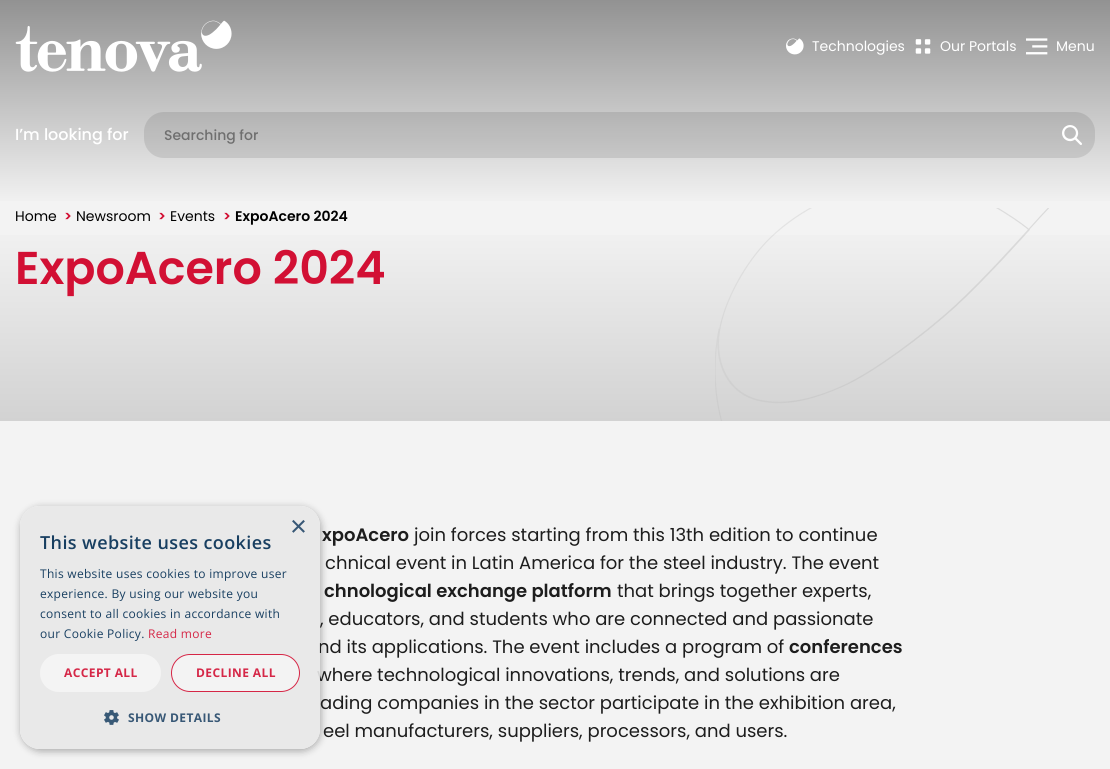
#include <cairo/cairo.h>
#include <math.h>
#include <stddef.h>


static void draw_spaced(cairo_t *cr, double x, double y, const char *s, double letter, double word) {
  cairo_move_to(cr, x, y);
  while (*s) {
    char ch[5] = {0};
    int n = 0;
    do ch[n++] = *s++; while ((*s & 0xC0) == 0x80);
    cairo_show_text(cr, ch);
    cairo_rel_move_to(cr, letter + word * (*ch == ' '), 0);
  }
}

static void rounded_rect(cairo_t *cr, double x, double y, double w, double h, double r) {
  cairo_new_sub_path(cr);
  cairo_arc(cr, x + w - r, y + h - r, r, 0, M_PI / 2);
  cairo_arc(cr, x + r, y + h - r, r, M_PI / 2, M_PI);
  cairo_arc(cr, x + r, y + r, r, M_PI, 1.5 * M_PI);
  cairo_arc(cr, x + w - r, y + r, r, 1.5 * M_PI, 2 * M_PI);
  cairo_close_path(cr);
}

static void draw_shadow(cairo_t *cr, double x, double y, double w, double h, double r, double blur, double alpha) {
  cairo_push_group_with_content(cr, CAIRO_CONTENT_ALPHA);
  cairo_set_operator(cr, CAIRO_OPERATOR_SOURCE);
  for (int i = 15; i >= -15 && fmin(w, h) + blur * i / 3 > 0; i -= 2) {
    double e = blur * i / 6;
    cairo_set_source_rgba(cr, 0, 0, 0, alpha * erfc((i - 1) / 8.5) / 2);
    rounded_rect(cr, x - e, y - e, w + 2 * e, h + 2 * e, fmax(0, fmin(r + e + blur * .6, fmin(w, h) / 2 + e)));
    cairo_fill(cr);
  }
  cairo_pattern_t *soft = cairo_pop_group(cr);
  cairo_mask(cr, soft);
  cairo_pattern_destroy(soft);
}

static void draw_image(cairo_t *cr, const char *path, double x, double y, double w, double h) {
  cairo_surface_t *image = cairo_image_surface_create_from_png(path);
  cairo_save(cr);
  cairo_set_source_surface(cr, image, x, y);
  cairo_rectangle(cr, x, y, w, h);
  cairo_fill(cr);
  cairo_restore(cr);
  cairo_surface_destroy(image);
}

static void draw(cairo_t *cr) {
  cairo_pattern_t *gradient;
  cairo_set_source_rgb(cr, 243 / 255.0, 243 / 255.0, 243 / 255.0);
  cairo_paint(cr);
  gradient = cairo_pattern_create_linear(555, 0, 555, 208);
  cairo_pattern_add_color_stop_rgba(gradient, 0, 146 / 255.0, 146 / 255.0, 146 / 255.0, 1);
  cairo_pattern_add_color_stop_rgba(gradient, 1, 244 / 255.0, 244 / 255.0, 244 / 255.0, 1);
  cairo_set_source(cr, gradient);
  cairo_pattern_destroy(gradient);
  cairo_rectangle(cr, 0, 0, 1110, 201);
  cairo_fill(cr);
  draw_image(cr, "images/1.png", 15, 20, 217, 52);
  draw_image(cr, "images/2.png", 786, 38, 18, 17);
  draw_image(cr, "images/3.png", 915, 39, 16, 15);
  draw_image(cr, "images/4.png", 1026, 38, 22, 17);
  cairo_set_source_rgba(cr, 0, 0, 0, 0.1);
  rounded_rect(cr, 144, 112, 951, 46, 20);
  cairo_fill(cr);
  draw_image(cr, "images/5.png", 1062, 125, 20, 20);
  gradient = cairo_pattern_create_linear(555, 208, 555, 421);
  cairo_pattern_add_color_stop_rgba(gradient, 0, 245 / 255.0, 245 / 255.0, 245 / 255.0, 1);
  cairo_pattern_add_color_stop_rgba(gradient, 1, 210 / 255.0, 210 / 255.0, 210 / 255.0, 1);
  cairo_set_source(cr, gradient);
  cairo_pattern_destroy(gradient);
  cairo_rectangle(cr, 0, 235, 1110, 186);
  cairo_fill(cr);
  draw_image(cr, "images/6.png", 715, 208, 334, 213);
  cairo_save(cr);
  cairo_set_fill_rule(cr, CAIRO_FILL_RULE_EVEN_ODD);
  cairo_new_path(cr);
  cairo_move_to(cr, 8, 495);
  cairo_line_to(cr, 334, 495);
  cairo_line_to(cr, 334, 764);
  cairo_line_to(cr, 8, 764);
  cairo_close_path(cr);
  cairo_move_to(cr, 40, 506);
  cairo_line_to(cr, 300, 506);
  cairo_curve_to(cr, 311, 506, 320, 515, 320, 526);
  cairo_line_to(cr, 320, 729);
  cairo_curve_to(cr, 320, 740, 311, 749, 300, 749);
  cairo_line_to(cr, 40, 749);
  cairo_curve_to(cr, 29, 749, 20, 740, 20, 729);
  cairo_line_to(cr, 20, 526);
  cairo_curve_to(cr, 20, 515, 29, 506, 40, 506);
  cairo_close_path(cr);
  cairo_clip(cr);
  cairo_set_source_rgb(cr, 0, 0, 0);
  draw_shadow(cr, 21, 508, 300, 243, 20, 4, 0.32);
  cairo_restore(cr);
  cairo_select_font_face(cr, "Poppins", CAIRO_FONT_SLANT_NORMAL, CAIRO_FONT_WEIGHT_NORMAL);
  cairo_set_font_size(cr, 14);
  cairo_set_source_rgb(cr, 1, 1, 1);
  cairo_move_to(cr, 812, 51);
  cairo_show_text(cr, "Technologies");
  cairo_move_to(cr, 940, 51);
  cairo_show_text(cr, "Our Portals");
  cairo_move_to(cr, 1056, 51);
  cairo_show_text(cr, "Menu");
  cairo_select_font_face(cr, "Poppins Medium", CAIRO_FONT_SLANT_NORMAL, CAIRO_FONT_WEIGHT_NORMAL);
  cairo_set_font_size(cr, 16);
  cairo_move_to(cr, 15, 140);
  cairo_show_text(cr, "I’m looking for");
  cairo_set_font_size(cr, 14);
  cairo_set_source_rgb(cr, 111 / 255.0, 111 / 255.0, 111 / 255.0);
  cairo_move_to(cr, 164, 140);
  cairo_show_text(cr, "Searching for");
  cairo_select_font_face(cr, "Poppins", CAIRO_FONT_SLANT_NORMAL, CAIRO_FONT_WEIGHT_NORMAL);
  cairo_set_source_rgb(cr, 0, 0, 0);
  cairo_move_to(cr, 15, 221);
  cairo_show_text(cr, "Home");
  cairo_select_font_face(cr, "Poppins SemiBold", CAIRO_FONT_SLANT_NORMAL, CAIRO_FONT_WEIGHT_NORMAL);
  cairo_set_source_rgb(cr, 210 / 255.0, 16 / 255.0, 52 / 255.0);
  cairo_move_to(cr, 64, 221);
  cairo_show_text(cr, ">");
  cairo_select_font_face(cr, "Poppins", CAIRO_FONT_SLANT_NORMAL, CAIRO_FONT_WEIGHT_NORMAL);
  cairo_set_source_rgb(cr, 0, 0, 0);
  cairo_move_to(cr, 76, 221);
  cairo_show_text(cr, "Newsroom");
  cairo_select_font_face(cr, "Poppins SemiBold", CAIRO_FONT_SLANT_NORMAL, CAIRO_FONT_WEIGHT_NORMAL);
  cairo_set_source_rgb(cr, 210 / 255.0, 16 / 255.0, 52 / 255.0);
  cairo_move_to(cr, 158, 221);
  cairo_show_text(cr, ">");
  cairo_select_font_face(cr, "Poppins", CAIRO_FONT_SLANT_NORMAL, CAIRO_FONT_WEIGHT_NORMAL);
  cairo_set_source_rgb(cr, 0, 0, 0);
  cairo_move_to(cr, 170, 221);
  cairo_show_text(cr, "Events");
  cairo_select_font_face(cr, "Poppins SemiBold", CAIRO_FONT_SLANT_NORMAL, CAIRO_FONT_WEIGHT_NORMAL);
  cairo_set_source_rgb(cr, 210 / 255.0, 16 / 255.0, 52 / 255.0);
  cairo_move_to(cr, 223, 221);
  cairo_show_text(cr, ">");
  cairo_set_source_rgb(cr, 0, 0, 0);
  cairo_move_to(cr, 235, 221);
  cairo_show_text(cr, "ExpoAcero 2024");
  cairo_set_font_size(cr, 46);
  cairo_set_source_rgb(cr, 210 / 255.0, 16 / 255.0, 52 / 255.0);
  cairo_move_to(cr, 15, 284);
  cairo_show_text(cr, "ExpoAcero 2024");
  cairo_set_font_size(cr, 18);
  cairo_set_source_rgb(cr, 29 / 255.0, 29 / 255.0, 29 / 255.0);
  cairo_move_to(cr, 322, 541);
  cairo_show_text(cr, "xpoAcero");
  cairo_select_font_face(cr, "Poppins", CAIRO_FONT_SLANT_NORMAL, CAIRO_FONT_WEIGHT_NORMAL);
  cairo_move_to(cr, 414, 541);
  cairo_show_text(cr, "join forces starting from this 13th edition to continue");
  cairo_move_to(cr, 325, 569);
  cairo_show_text(cr, "chnical event in Latin America for the steel industry. The event");
  cairo_select_font_face(cr, "Poppins SemiBold", CAIRO_FONT_SLANT_NORMAL, CAIRO_FONT_WEIGHT_NORMAL);
  cairo_move_to(cr, 324, 597);
  cairo_show_text(cr, "chnological exchange platform");
  cairo_select_font_face(cr, "Poppins", CAIRO_FONT_SLANT_NORMAL, CAIRO_FONT_WEIGHT_NORMAL);
  cairo_move_to(cr, 617, 597);
  cairo_show_text(cr, "that brings together experts,");
  cairo_move_to(cr, 320, 625);
  cairo_show_text(cr, ", educators, and students who are connected and passionate");
  cairo_move_to(cr, 318, 653);
  cairo_show_text(cr, "nd its applications. The event includes a program of");
  cairo_select_font_face(cr, "Poppins SemiBold", CAIRO_FONT_SLANT_NORMAL, CAIRO_FONT_WEIGHT_NORMAL);
  cairo_move_to(cr, 789, 653);
  cairo_show_text(cr, "conferences");
  cairo_select_font_face(cr, "Poppins", CAIRO_FONT_SLANT_NORMAL, CAIRO_FONT_WEIGHT_NORMAL);
  cairo_move_to(cr, 317, 681);
  cairo_show_text(cr, "where technological innovations, trends, and solutions are");
  cairo_move_to(cr, 320, 709);
  cairo_show_text(cr, "ading companies in the sector participate in the exhibition area,");
  cairo_move_to(cr, 323, 737);
  cairo_show_text(cr, "eel manufacturers, suppliers, processors, and users.");
  cairo_set_source_rgba(cr, 232 / 255.0, 232 / 255.0, 232 / 255.0, 0.9);
  rounded_rect(cr, 20, 506, 300, 243, 20);
  cairo_fill(cr);
  cairo_select_font_face(cr, "Liberation Sans", CAIRO_FONT_SLANT_NORMAL, CAIRO_FONT_WEIGHT_NORMAL);
  cairo_set_font_size(cr, 29);
  cairo_set_source_rgb(cr, 56 / 255.0, 88 / 255.0, 118 / 255.0);
  cairo_move_to(cr, 290, 536);
  cairo_show_text(cr, "×");
  cairo_select_font_face(cr, "Open Sans SemiBold", CAIRO_FONT_SLANT_NORMAL, CAIRO_FONT_WEIGHT_NORMAL);
  cairo_set_font_size(cr, 18);
  cairo_set_source_rgb(cr, 24 / 255.0, 63 / 255.0, 97 / 255.0);
  draw_spaced(cr, 40, 549, "This website uses cookies", 0.4, 0);
  cairo_select_font_face(cr, "Open Sans", CAIRO_FONT_SLANT_NORMAL, CAIRO_FONT_WEIGHT_NORMAL);
  cairo_set_font_size(cr, 12);
  draw_spaced(cr, 40, 578, "This website uses cookies to improve user", 0.3, 0);
  draw_spaced(cr, 40, 598, "experience. By using our website you", 0.3, 0);
  draw_spaced(cr, 40, 618, "consent to all cookies in accordance with", 0.3, 0);
  draw_spaced(cr, 40, 638, "our Cookie Policy.", 0.3, 0);
  cairo_set_source_rgb(cr, 213 / 255.0, 39 / 255.0, 71 / 255.0);
  draw_spaced(cr, 148, 638, "Read more", 0.3, 0);
  cairo_set_source_rgb(cr, 244 / 255.0, 244 / 255.0, 244 / 255.0);
  rounded_rect(cr, 40, 654, 121, 38, 19);
  cairo_fill(cr);
  cairo_select_font_face(cr, "Open Sans", CAIRO_FONT_SLANT_NORMAL, CAIRO_FONT_WEIGHT_BOLD);
  cairo_set_source_rgb(cr, 213 / 255.0, 39 / 255.0, 71 / 255.0);
  draw_spaced(cr, 64, 677, "ACCEPT ALL", 0.4, 0);
  cairo_set_source_rgba(cr, 244 / 255.0, 244 / 255.0, 244 / 255.0, 0.9);
  rounded_rect(cr, 171, 654, 129, 38, 19);
  cairo_fill(cr);
  rounded_rect(cr, 171.5, 654.5, 128, 37, 18.5);
  cairo_set_source_rgba(cr, 210 / 255.0, 16 / 255.0, 52 / 255.0, 0.9);
  cairo_set_line_width(cr, 1);
  cairo_stroke(cr);
  cairo_set_source_rgb(cr, 213 / 255.0, 39 / 255.0, 71 / 255.0);
  draw_spaced(cr, 196, 677, "DECLINE ALL", 0.4, 0);
  draw_image(cr, "images/7.png", 104, 710, 15, 15);
  cairo_set_source_rgb(cr, 56 / 255.0, 88 / 255.0, 118 / 255.0);
  draw_spaced(cr, 128, 722, "SHOW DETAILS", 0.4, 0);
}

int main(void) {
  cairo_surface_t *surface = cairo_image_surface_create(CAIRO_FORMAT_RGB24, 1110, 769);
  cairo_t *cr = cairo_create(surface);
  cairo_font_options_t *options = cairo_font_options_create();
  cairo_font_options_set_hint_metrics(options, CAIRO_HINT_METRICS_OFF);
  cairo_font_options_set_hint_style(options, CAIRO_HINT_STYLE_NONE);
  cairo_set_font_options(cr, options);
  cairo_set_miter_limit(cr, 4);
  draw(cr);
  cairo_surface_write_to_png(surface, "out.png");
  cairo_font_options_destroy(options);
  cairo_destroy(cr);
  cairo_surface_destroy(surface);
  return 0;
}
